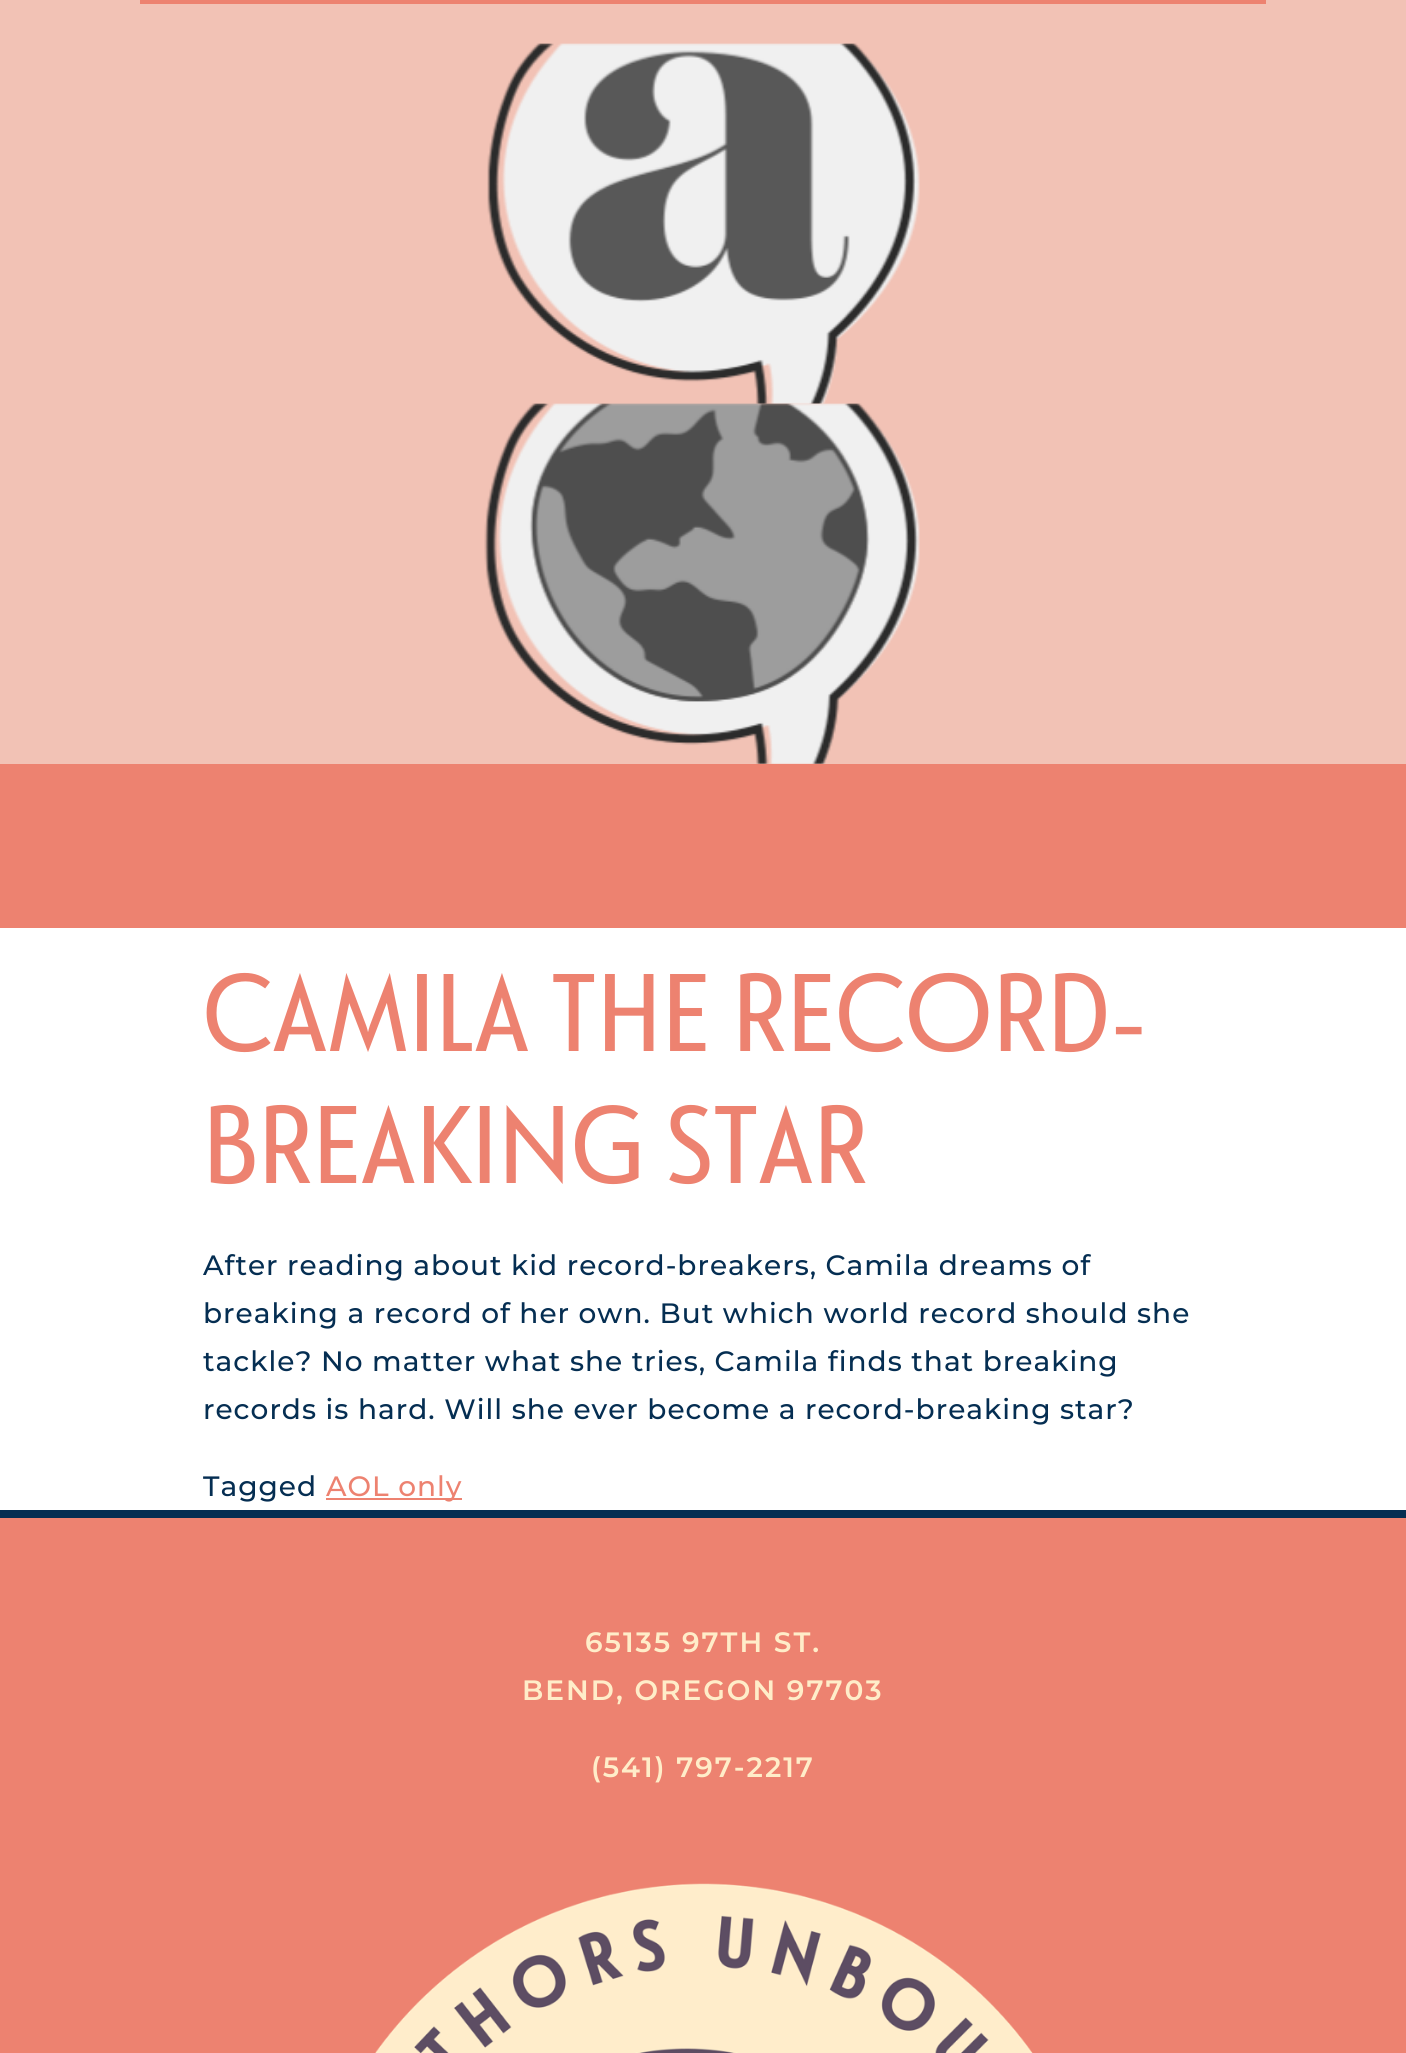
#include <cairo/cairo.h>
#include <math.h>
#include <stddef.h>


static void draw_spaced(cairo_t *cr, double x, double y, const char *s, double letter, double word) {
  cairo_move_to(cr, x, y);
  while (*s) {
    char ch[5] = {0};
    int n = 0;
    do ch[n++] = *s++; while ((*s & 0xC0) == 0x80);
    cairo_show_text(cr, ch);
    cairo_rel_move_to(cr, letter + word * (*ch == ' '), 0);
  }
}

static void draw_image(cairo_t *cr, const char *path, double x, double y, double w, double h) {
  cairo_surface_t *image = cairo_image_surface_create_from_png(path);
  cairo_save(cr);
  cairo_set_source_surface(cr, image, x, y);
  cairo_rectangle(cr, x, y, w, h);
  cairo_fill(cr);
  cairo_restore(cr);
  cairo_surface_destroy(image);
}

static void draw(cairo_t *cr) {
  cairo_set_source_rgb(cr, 1, 1, 1);
  cairo_paint(cr);
  cairo_set_source_rgb(cr, 242 / 255.0, 194 / 255.0, 181 / 255.0);
  cairo_rectangle(cr, 0, 0, 1406, 764);
  cairo_fill(cr);
  cairo_set_source_rgb(cr, 237 / 255.0, 130 / 255.0, 112 / 255.0);
  cairo_rectangle(cr, 140, 0, 1126, 4);
  cairo_fill(cr);
  draw_image(cr, "images/1.png", 487, 43, 433, 361);
  draw_image(cr, "images/2.png", 484, 403, 436, 361);
  cairo_rectangle(cr, 0, 764, 1406, 164);
  cairo_fill(cr);
  cairo_rectangle(cr, 326, 1498, 136, 2);
  cairo_fill(cr);
  cairo_rectangle(cr, 0, 1518, 1406, 535);
  cairo_fill(cr);
  cairo_set_source_rgb(cr, 5 / 255.0, 46 / 255.0, 82 / 255.0);
  cairo_rectangle(cr, 0, 1510, 1406, 8);
  cairo_fill(cr);
  draw_image(cr, "images/3.png", 375, 1883, 658, 170);
  cairo_select_font_face(cr, "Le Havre", CAIRO_FONT_SLANT_NORMAL, CAIRO_FONT_WEIGHT_NORMAL);
  cairo_set_font_size(cr, 110);
  cairo_set_source_rgb(cr, 237 / 255.0, 130 / 255.0, 112 / 255.0);
  draw_spaced(cr, 203, 1051, "CAMILA THE RECORD-", 1, 0);
  draw_spaced(cr, 203, 1183, "BREAKING STAR", 1, 0);
  cairo_select_font_face(cr, "Montserrat Medium", CAIRO_FONT_SLANT_NORMAL, CAIRO_FONT_WEIGHT_NORMAL);
  cairo_set_font_size(cr, 28);
  cairo_set_source_rgb(cr, 5 / 255.0, 46 / 255.0, 82 / 255.0);
  draw_spaced(cr, 203, 1275, "After reading about kid record-breakers, Camila dreams of", 1, 0);
  draw_spaced(cr, 203, 1323, "breaking a record of her own. But which world record should she", 1, 0);
  draw_spaced(cr, 203, 1371, "tackle? No matter what she tries, Camila finds that breaking", 1, 0);
  draw_spaced(cr, 203, 1419, "records is hard. Will she ever become a record-breaking star?", 1, 0);
  draw_spaced(cr, 203, 1496, "Tagged", 1, 0);
  cairo_set_source_rgb(cr, 237 / 255.0, 130 / 255.0, 112 / 255.0);
  draw_spaced(cr, 326, 1496, "AOL only", 1, 0);
  cairo_select_font_face(cr, "Montserrat SemiBold", CAIRO_FONT_SLANT_NORMAL, CAIRO_FONT_WEIGHT_NORMAL);
  cairo_set_source_rgb(cr, 1, 237 / 255.0, 201 / 255.0);
  draw_spaced(cr, 585, 1652, "65135 97TH ST.", 2, 0);
  draw_spaced(cr, 522, 1700, "BEND, OREGON 97703", 2, 0);
  draw_spaced(cr, 591, 1777, "(541) 797-2217", 2, 0);
}

int main(void) {
  cairo_surface_t *surface = cairo_image_surface_create(CAIRO_FORMAT_RGB24, 1406, 2053);
  cairo_t *cr = cairo_create(surface);
  cairo_font_options_t *options = cairo_font_options_create();
  cairo_font_options_set_hint_metrics(options, CAIRO_HINT_METRICS_OFF);
  cairo_font_options_set_hint_style(options, CAIRO_HINT_STYLE_NONE);
  cairo_set_font_options(cr, options);
  cairo_set_miter_limit(cr, 4);
  draw(cr);
  cairo_surface_write_to_png(surface, "out.png");
  cairo_font_options_destroy(options);
  cairo_destroy(cr);
  cairo_surface_destroy(surface);
  return 0;
}
